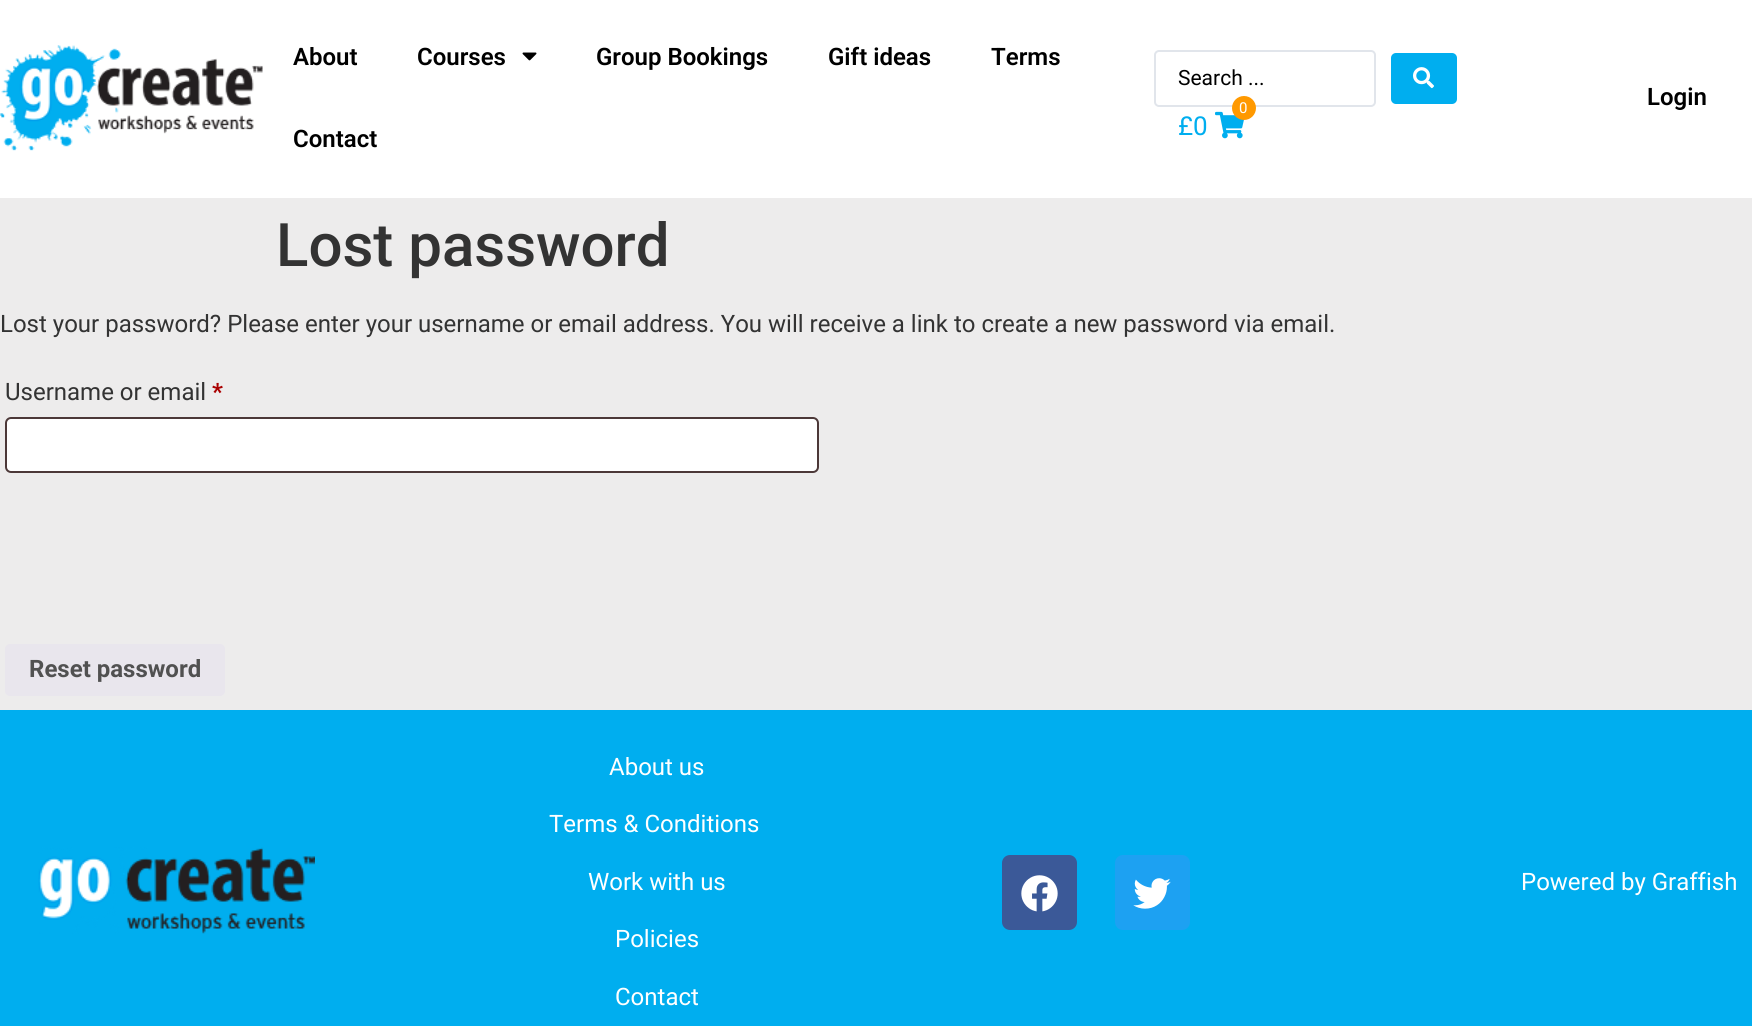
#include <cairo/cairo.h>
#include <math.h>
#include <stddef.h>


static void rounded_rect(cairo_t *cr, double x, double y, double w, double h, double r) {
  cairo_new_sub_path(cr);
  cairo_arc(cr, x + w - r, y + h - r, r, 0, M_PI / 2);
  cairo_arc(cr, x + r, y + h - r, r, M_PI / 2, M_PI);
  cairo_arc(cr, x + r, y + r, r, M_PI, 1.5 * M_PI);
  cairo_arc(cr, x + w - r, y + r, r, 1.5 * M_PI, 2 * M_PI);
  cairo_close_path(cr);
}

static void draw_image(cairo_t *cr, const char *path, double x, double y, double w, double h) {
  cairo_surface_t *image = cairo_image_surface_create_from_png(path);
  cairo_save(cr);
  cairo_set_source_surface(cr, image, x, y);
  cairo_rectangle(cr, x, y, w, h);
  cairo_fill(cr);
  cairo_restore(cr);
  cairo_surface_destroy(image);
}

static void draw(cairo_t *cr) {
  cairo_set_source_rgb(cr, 237 / 255.0, 236 / 255.0, 236 / 255.0);
  cairo_paint(cr);
  cairo_set_source_rgb(cr, 1, 1, 1);
  cairo_rectangle(cr, 0, 0, 1752, 198);
  cairo_fill(cr);
  draw_image(cr, "images/1.png", 0, 45, 263, 106);
  draw_image(cr, "images/2.png", 522, 52, 15, 9);
  rounded_rect(cr, 1155, 51, 220, 55, 4);
  cairo_set_source_rgb(cr, 225 / 255.0, 229 / 255.0, 235 / 255.0);
  cairo_stroke(cr);
  cairo_set_source_rgb(cr, 0, 174 / 255.0, 239 / 255.0);
  rounded_rect(cr, 1391, 53, 66, 51, 5);
  cairo_fill(cr);
  draw_image(cr, "images/3.png", 1413, 67, 21, 22);
  draw_image(cr, "images/4.png", 1215, 111, 30, 28);
  cairo_set_source_rgb(cr, 1, 153 / 255.0, 0);
  cairo_arc(cr, 1244, 108, 12, 0, 2 * M_PI);
  cairo_fill(cr);
  cairo_set_source_rgb(cr, 1, 1, 1);
  rounded_rect(cr, 5, 417, 814, 56, 6);
  cairo_fill(cr);
  rounded_rect(cr, 6, 418, 812, 54, 5);
  cairo_set_source_rgba(cr, 32 / 255.0, 7 / 255.0, 7 / 255.0, 0.8);
  cairo_stroke(cr);
  cairo_set_source_rgb(cr, 233 / 255.0, 230 / 255.0, 237 / 255.0);
  rounded_rect(cr, 5, 644, 220, 52, 5);
  cairo_fill(cr);
  cairo_set_source_rgb(cr, 0, 174 / 255.0, 239 / 255.0);
  cairo_rectangle(cr, 0, 710, 1752, 316);
  cairo_fill(cr);
  draw_image(cr, "images/5.png", 38, 847, 277, 87);
  cairo_set_source_rgb(cr, 59 / 255.0, 89 / 255.0, 152 / 255.0);
  rounded_rect(cr, 1002, 855, 75, 75, 8);
  cairo_fill(cr);
  draw_image(cr, "images/6.png", 1021, 875, 37, 37);
  cairo_set_source_rgb(cr, 29 / 255.0, 161 / 255.0, 242 / 255.0);
  rounded_rect(cr, 1115, 855, 75, 75, 8);
  cairo_fill(cr);
  draw_image(cr, "images/7.png", 1133, 878, 38, 31);
  cairo_select_font_face(cr, "Roboto SemiBold", CAIRO_FONT_SLANT_NORMAL, CAIRO_FONT_WEIGHT_NORMAL);
  cairo_set_font_size(cr, 24);
  cairo_set_source_rgb(cr, 0, 0, 0);
  cairo_move_to(cr, 293, 65);
  cairo_show_text(cr, "About");
  cairo_move_to(cr, 417, 65);
  cairo_show_text(cr, "Courses");
  cairo_move_to(cr, 596, 65);
  cairo_show_text(cr, "Group Bookings");
  cairo_move_to(cr, 828, 65);
  cairo_show_text(cr, "Gift ideas");
  cairo_move_to(cr, 991, 65);
  cairo_show_text(cr, "Terms");
  cairo_move_to(cr, 293, 147);
  cairo_show_text(cr, "Contact");
  cairo_select_font_face(cr, "Roboto", CAIRO_FONT_SLANT_NORMAL, CAIRO_FONT_WEIGHT_NORMAL);
  cairo_set_font_size(cr, 21);
  cairo_move_to(cr, 1178, 85);
  cairo_show_text(cr, "Search ...");
  cairo_set_font_size(cr, 15);
  cairo_set_source_rgb(cr, 1, 1, 1);
  cairo_move_to(cr, 1239, 113);
  cairo_show_text(cr, "0");
  cairo_set_font_size(cr, 26);
  cairo_set_source_rgb(cr, 0, 174 / 255.0, 239 / 255.0);
  cairo_move_to(cr, 1178, 135);
  cairo_show_text(cr, "£0");
  cairo_select_font_face(cr, "Roboto SemiBold", CAIRO_FONT_SLANT_NORMAL, CAIRO_FONT_WEIGHT_NORMAL);
  cairo_set_font_size(cr, 24);
  cairo_set_source_rgb(cr, 0, 0, 0);
  cairo_move_to(cr, 1647, 105);
  cairo_show_text(cr, "Login");
  cairo_select_font_face(cr, "Roboto Medium", CAIRO_FONT_SLANT_NORMAL, CAIRO_FONT_WEIGHT_NORMAL);
  cairo_set_font_size(cr, 60);
  cairo_set_source_rgb(cr, 51 / 255.0, 51 / 255.0, 51 / 255.0);
  cairo_move_to(cr, 276, 266);
  cairo_show_text(cr, "Lost password");
  cairo_select_font_face(cr, "Roboto", CAIRO_FONT_SLANT_NORMAL, CAIRO_FONT_WEIGHT_NORMAL);
  cairo_set_font_size(cr, 24);
  cairo_move_to(cr, 0, 332);
  cairo_show_text(cr, "Lost your password? Please enter your username or email address. You will receive a link to create a new password via email.");
  cairo_move_to(cr, 5, 400);
  cairo_show_text(cr, "Username or email");
  cairo_select_font_face(cr, "Roboto", CAIRO_FONT_SLANT_NORMAL, CAIRO_FONT_WEIGHT_BOLD);
  cairo_set_source_rgb(cr, 170 / 255.0, 0, 0);
  cairo_move_to(cr, 212, 400);
  cairo_show_text(cr, "*");
  cairo_set_source_rgb(cr, 81 / 255.0, 81 / 255.0, 81 / 255.0);
  cairo_move_to(cr, 29, 677);
  cairo_show_text(cr, "Reset password");
  cairo_select_font_face(cr, "Roboto", CAIRO_FONT_SLANT_NORMAL, CAIRO_FONT_WEIGHT_NORMAL);
  cairo_set_source_rgb(cr, 1, 1, 1);
  cairo_move_to(cr, 609, 775);
  cairo_show_text(cr, "About us");
  cairo_move_to(cr, 549, 832);
  cairo_show_text(cr, "Terms & Conditions");
  cairo_move_to(cr, 588, 890);
  cairo_show_text(cr, "Work with us");
  cairo_move_to(cr, 615, 947);
  cairo_show_text(cr, "Policies");
  cairo_move_to(cr, 615, 1005);
  cairo_show_text(cr, "Contact");
  cairo_move_to(cr, 1521, 890);
  cairo_show_text(cr, "Powered by Graffish");
}

int main(void) {
  cairo_surface_t *surface = cairo_image_surface_create(CAIRO_FORMAT_RGB24, 1752, 1026);
  cairo_t *cr = cairo_create(surface);
  cairo_font_options_t *options = cairo_font_options_create();
  cairo_font_options_set_hint_metrics(options, CAIRO_HINT_METRICS_OFF);
  cairo_font_options_set_hint_style(options, CAIRO_HINT_STYLE_NONE);
  cairo_set_font_options(cr, options);
  cairo_set_miter_limit(cr, 4);
  draw(cr);
  cairo_surface_write_to_png(surface, "out.png");
  cairo_font_options_destroy(options);
  cairo_destroy(cr);
  cairo_surface_destroy(surface);
  return 0;
}
